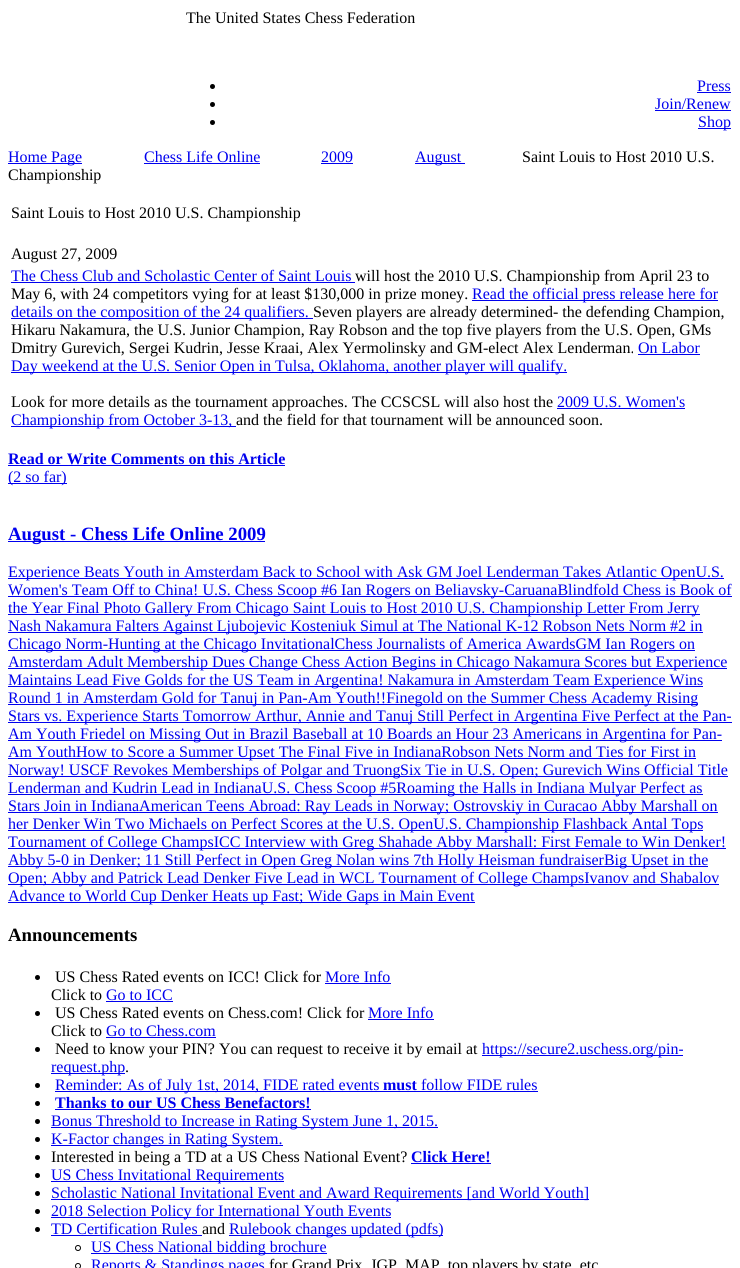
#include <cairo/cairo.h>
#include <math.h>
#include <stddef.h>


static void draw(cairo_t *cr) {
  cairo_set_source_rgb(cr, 1, 1, 1);
  cairo_paint(cr);
  cairo_set_source_rgb(cr, 0, 0, 0);
  cairo_arc(cr, 212.5, 86.5, 2.5, 0, 2 * M_PI);
  cairo_fill(cr);
  cairo_set_source_rgb(cr, 0, 0, 238 / 255.0);
  cairo_rectangle(cr, 697, 92, 34, 1);
  cairo_fill(cr);
  cairo_set_source_rgb(cr, 0, 0, 0);
  cairo_arc(cr, 212.5, 104.5, 2.5, 0, 2 * M_PI);
  cairo_fill(cr);
  cairo_set_source_rgb(cr, 0, 0, 238 / 255.0);
  cairo_rectangle(cr, 655, 110, 76, 1);
  cairo_fill(cr);
  cairo_set_source_rgb(cr, 0, 0, 0);
  cairo_arc(cr, 212.5, 122.5, 2.5, 0, 2 * M_PI);
  cairo_fill(cr);
  cairo_set_source_rgb(cr, 0, 0, 238 / 255.0);
  cairo_rectangle(cr, 698, 128, 33, 1);
  cairo_fill(cr);
  cairo_rectangle(cr, 8, 163, 74, 1);
  cairo_fill(cr);
  cairo_rectangle(cr, 144, 163, 116, 1);
  cairo_fill(cr);
  cairo_rectangle(cr, 321, 163, 32, 1);
  cairo_fill(cr);
  cairo_rectangle(cr, 415, 163, 50, 1);
  cairo_fill(cr);
  cairo_rectangle(cr, 11, 282, 344, 1);
  cairo_fill(cr);
  cairo_rectangle(cr, 472, 300, 246, 1);
  cairo_fill(cr);
  cairo_rectangle(cr, 11, 318, 302, 1);
  cairo_fill(cr);
  cairo_rectangle(cr, 638, 354, 62, 1);
  cairo_fill(cr);
  cairo_rectangle(cr, 11, 372, 556, 1);
  cairo_fill(cr);
  cairo_rectangle(cr, 557, 408, 128, 1);
  cairo_fill(cr);
  cairo_rectangle(cr, 11, 426, 225, 1);
  cairo_fill(cr);
  cairo_rectangle(cr, 8, 465, 277, 1);
  cairo_fill(cr);
  cairo_rectangle(cr, 8, 483, 59, 1);
  cairo_fill(cr);
  cairo_rectangle(cr, 8, 541, 257, 1);
  cairo_fill(cr);
  cairo_rectangle(cr, 8, 578, 687, 1);
  cairo_fill(cr);
  cairo_rectangle(cr, 695, 578, 29, 1);
  cairo_fill(cr);
  cairo_rectangle(cr, 8, 596, 549, 1);
  cairo_fill(cr);
  cairo_rectangle(cr, 557, 596, 175, 1);
  cairo_fill(cr);
  cairo_rectangle(cr, 8, 614, 692, 1);
  cairo_fill(cr);
  cairo_rectangle(cr, 8, 632, 695, 1);
  cairo_fill(cr);
  cairo_rectangle(cr, 8, 650, 687, 1);
  cairo_fill(cr);
  cairo_rectangle(cr, 8, 668, 719, 1);
  cairo_fill(cr);
  cairo_rectangle(cr, 8, 686, 695, 1);
  cairo_fill(cr);
  cairo_rectangle(cr, 8, 704, 690, 1);
  cairo_fill(cr);
  cairo_rectangle(cr, 8, 722, 724, 1);
  cairo_fill(cr);
  cairo_rectangle(cr, 8, 740, 714, 1);
  cairo_fill(cr);
  cairo_rectangle(cr, 8, 758, 433, 1);
  cairo_fill(cr);
  cairo_rectangle(cr, 441, 758, 255, 1);
  cairo_fill(cr);
  cairo_rectangle(cr, 8, 776, 392, 1);
  cairo_fill(cr);
  cairo_rectangle(cr, 400, 776, 328, 1);
  cairo_fill(cr);
  cairo_rectangle(cr, 8, 794, 695, 1);
  cairo_fill(cr);
  cairo_rectangle(cr, 8, 812, 710, 1);
  cairo_fill(cr);
  cairo_rectangle(cr, 8, 830, 695, 1);
  cairo_fill(cr);
  cairo_rectangle(cr, 8, 848, 718, 1);
  cairo_fill(cr);
  cairo_rectangle(cr, 8, 866, 700, 1);
  cairo_fill(cr);
  cairo_rectangle(cr, 8, 884, 711, 1);
  cairo_fill(cr);
  cairo_rectangle(cr, 8, 902, 467, 1);
  cairo_fill(cr);
  cairo_set_source_rgb(cr, 0, 0, 0);
  cairo_arc(cr, 37.5, 977.5, 2.5, 0, 2 * M_PI);
  cairo_fill(cr);
  cairo_set_source_rgb(cr, 0, 0, 238 / 255.0);
  cairo_rectangle(cr, 325, 983, 66, 1);
  cairo_fill(cr);
  cairo_rectangle(cr, 106, 1001, 67, 1);
  cairo_fill(cr);
  cairo_set_source_rgb(cr, 0, 0, 0);
  cairo_arc(cr, 37.5, 1013.5, 2.5, 0, 2 * M_PI);
  cairo_fill(cr);
  cairo_set_source_rgb(cr, 0, 0, 238 / 255.0);
  cairo_rectangle(cr, 368, 1019, 66, 1);
  cairo_fill(cr);
  cairo_rectangle(cr, 106, 1037, 110, 1);
  cairo_fill(cr);
  cairo_set_source_rgb(cr, 0, 0, 0);
  cairo_arc(cr, 37.5, 1049.5, 2.5, 0, 2 * M_PI);
  cairo_fill(cr);
  cairo_set_source_rgb(cr, 0, 0, 238 / 255.0);
  cairo_rectangle(cr, 482, 1055, 201, 1);
  cairo_fill(cr);
  cairo_rectangle(cr, 51, 1073, 74, 1);
  cairo_fill(cr);
  cairo_set_source_rgb(cr, 0, 0, 0);
  cairo_arc(cr, 37.5, 1085.5, 2.5, 0, 2 * M_PI);
  cairo_fill(cr);
  cairo_set_source_rgb(cr, 0, 0, 238 / 255.0);
  cairo_rectangle(cr, 55, 1091, 483, 1);
  cairo_fill(cr);
  cairo_set_source_rgb(cr, 0, 0, 0);
  cairo_arc(cr, 37.5, 1103.5, 2.5, 0, 2 * M_PI);
  cairo_fill(cr);
  cairo_set_source_rgb(cr, 0, 0, 238 / 255.0);
  cairo_rectangle(cr, 55, 1109, 256, 1);
  cairo_fill(cr);
  cairo_set_source_rgb(cr, 0, 0, 0);
  cairo_arc(cr, 37.5, 1121.5, 2.5, 0, 2 * M_PI);
  cairo_fill(cr);
  cairo_set_source_rgb(cr, 0, 0, 238 / 255.0);
  cairo_rectangle(cr, 51, 1127, 387, 1);
  cairo_fill(cr);
  cairo_set_source_rgb(cr, 0, 0, 0);
  cairo_arc(cr, 37.5, 1139.5, 2.5, 0, 2 * M_PI);
  cairo_fill(cr);
  cairo_set_source_rgb(cr, 0, 0, 238 / 255.0);
  cairo_rectangle(cr, 51, 1145, 232, 1);
  cairo_fill(cr);
  cairo_set_source_rgb(cr, 0, 0, 0);
  cairo_arc(cr, 37.5, 1157.5, 2.5, 0, 2 * M_PI);
  cairo_fill(cr);
  cairo_set_source_rgb(cr, 0, 0, 238 / 255.0);
  cairo_rectangle(cr, 411, 1163, 80, 1);
  cairo_fill(cr);
  cairo_set_source_rgb(cr, 0, 0, 0);
  cairo_arc(cr, 37.5, 1175.5, 2.5, 0, 2 * M_PI);
  cairo_fill(cr);
  cairo_set_source_rgb(cr, 0, 0, 238 / 255.0);
  cairo_rectangle(cr, 51, 1181, 233, 1);
  cairo_fill(cr);
  cairo_set_source_rgb(cr, 0, 0, 0);
  cairo_arc(cr, 37.5, 1193.5, 2.5, 0, 2 * M_PI);
  cairo_fill(cr);
  cairo_set_source_rgb(cr, 0, 0, 238 / 255.0);
  cairo_rectangle(cr, 51, 1199, 538, 1);
  cairo_fill(cr);
  cairo_set_source_rgb(cr, 0, 0, 0);
  cairo_arc(cr, 37.5, 1211.5, 2.5, 0, 2 * M_PI);
  cairo_fill(cr);
  cairo_set_source_rgb(cr, 0, 0, 238 / 255.0);
  cairo_rectangle(cr, 51, 1217, 340, 1);
  cairo_fill(cr);
  cairo_set_source_rgb(cr, 0, 0, 0);
  cairo_arc(cr, 37.5, 1229.5, 2.5, 0, 2 * M_PI);
  cairo_fill(cr);
  cairo_set_source_rgb(cr, 0, 0, 238 / 255.0);
  cairo_rectangle(cr, 51, 1235, 151, 1);
  cairo_fill(cr);
  cairo_rectangle(cr, 229, 1235, 214, 1);
  cairo_fill(cr);
  cairo_arc(cr, 78, 1248, 2.5, 0, 2 * M_PI);
  cairo_set_source_rgb(cr, 0, 0, 0);
  cairo_set_line_width(cr, 1);
  cairo_stroke(cr);
  cairo_set_source_rgb(cr, 0, 0, 238 / 255.0);
  cairo_rectangle(cr, 91, 1253, 236, 1);
  cairo_fill(cr);
  cairo_arc(cr, 78, 1266, 2.5, 0, 2 * M_PI);
  cairo_set_source_rgb(cr, 0, 0, 0);
  cairo_stroke(cr);
  cairo_select_font_face(cr, "Liberation Serif", CAIRO_FONT_SLANT_NORMAL, CAIRO_FONT_WEIGHT_NORMAL);
  cairo_set_font_size(cr, 16);
  cairo_move_to(cr, 186, 23);
  cairo_show_text(cr, "The United States Chess Federation");
  cairo_set_source_rgb(cr, 0, 0, 238 / 255.0);
  cairo_move_to(cr, 697, 91);
  cairo_show_text(cr, "Press");
  cairo_move_to(cr, 655, 109);
  cairo_show_text(cr, "Join/Renew");
  cairo_move_to(cr, 698, 127);
  cairo_show_text(cr, "Shop");
  cairo_move_to(cr, 8, 162);
  cairo_show_text(cr, "Home Page");
  cairo_move_to(cr, 144, 162);
  cairo_show_text(cr, "Chess Life Online");
  cairo_move_to(cr, 321, 162);
  cairo_show_text(cr, "2009");
  cairo_move_to(cr, 415, 162);
  cairo_show_text(cr, "August");
  cairo_set_source_rgb(cr, 0, 0, 0);
  cairo_move_to(cr, 522, 162);
  cairo_show_text(cr, "Saint Louis to Host 2010 U.S.");
  cairo_move_to(cr, 8, 180);
  cairo_show_text(cr, "Championship");
  cairo_move_to(cr, 11, 218);
  cairo_show_text(cr, "Saint Louis to Host 2010 U.S. Championship");
  cairo_move_to(cr, 11, 259);
  cairo_show_text(cr, "August 27, 2009");
  cairo_set_source_rgb(cr, 0, 0, 238 / 255.0);
  cairo_move_to(cr, 11, 281);
  cairo_show_text(cr, "The Chess Club and Scholastic Center of Saint Louis");
  cairo_set_source_rgb(cr, 0, 0, 0);
  cairo_move_to(cr, 355, 281);
  cairo_show_text(cr, "will host the 2010 U.S. Championship from April 23 to");
  cairo_move_to(cr, 11, 299);
  cairo_show_text(cr, "May 6, with 24 competitors vying for at least $130,000 in prize money.");
  cairo_set_source_rgb(cr, 0, 0, 238 / 255.0);
  cairo_move_to(cr, 472, 299);
  cairo_show_text(cr, "Read the official press release here for");
  cairo_move_to(cr, 11, 317);
  cairo_show_text(cr, "details on the composition of the 24 qualifiers.");
  cairo_set_source_rgb(cr, 0, 0, 0);
  cairo_move_to(cr, 313, 317);
  cairo_show_text(cr, "Seven players are already determined- the defending Champion,");
  cairo_move_to(cr, 11, 335);
  cairo_show_text(cr, "Hikaru Nakamura, the U.S. Junior Champion, Ray Robson and the top five players from the U.S. Open, GMs");
  cairo_move_to(cr, 11, 353);
  cairo_show_text(cr, "Dmitry Gurevich, Sergei Kudrin, Jesse Kraai, Alex Yermolinsky and GM-elect Alex Lenderman.");
  cairo_set_source_rgb(cr, 0, 0, 238 / 255.0);
  cairo_move_to(cr, 638, 353);
  cairo_show_text(cr, "On Labor");
  cairo_move_to(cr, 11, 371);
  cairo_show_text(cr, "Day weekend at the U.S. Senior Open in Tulsa, Oklahoma, another player will qualify.");
  cairo_set_source_rgb(cr, 0, 0, 0);
  cairo_move_to(cr, 11, 407);
  cairo_show_text(cr, "Look for more details as the tournament approaches. The CCSCSL will also host the");
  cairo_set_source_rgb(cr, 0, 0, 238 / 255.0);
  cairo_move_to(cr, 557, 407);
  cairo_show_text(cr, "2009 U.S. Women's");
  cairo_move_to(cr, 11, 425);
  cairo_show_text(cr, "Championship from October 3-13,");
  cairo_set_source_rgb(cr, 0, 0, 0);
  cairo_move_to(cr, 236, 425);
  cairo_show_text(cr, "and the field for that tournament will be announced soon.");
  cairo_select_font_face(cr, "Liberation Serif", CAIRO_FONT_SLANT_NORMAL, CAIRO_FONT_WEIGHT_BOLD);
  cairo_set_source_rgb(cr, 0, 0, 238 / 255.0);
  cairo_move_to(cr, 8, 464);
  cairo_show_text(cr, "Read or Write Comments on this Article");
  cairo_select_font_face(cr, "Liberation Serif", CAIRO_FONT_SLANT_NORMAL, CAIRO_FONT_WEIGHT_NORMAL);
  cairo_move_to(cr, 8, 482);
  cairo_show_text(cr, "(2 so far)");
  cairo_select_font_face(cr, "Liberation Serif", CAIRO_FONT_SLANT_NORMAL, CAIRO_FONT_WEIGHT_BOLD);
  cairo_set_font_size(cr, 18.75);
  cairo_move_to(cr, 8, 540);
  cairo_show_text(cr, "August - Chess Life Online 2009");
  cairo_select_font_face(cr, "Liberation Serif", CAIRO_FONT_SLANT_NORMAL, CAIRO_FONT_WEIGHT_NORMAL);
  cairo_set_font_size(cr, 16);
  cairo_move_to(cr, 8, 577);
  cairo_show_text(cr, "Experience Beats Youth in Amsterdam Back to School with Ask GM Joel Lenderman Takes Atlantic OpenU.S.");
  cairo_move_to(cr, 8, 595);
  cairo_show_text(cr, "Women's Team Off to China! U.S. Chess Scoop #6 Ian Rogers on Beliavsky-CaruanaBlindfold Chess is Book of");
  cairo_move_to(cr, 8, 613);
  cairo_show_text(cr, "the Year Final Photo Gallery From Chicago Saint Louis to Host 2010 U.S. Championship Letter From Jerry");
  cairo_move_to(cr, 8, 631);
  cairo_show_text(cr, "Nash Nakamura Falters Against Ljubojevic Kosteniuk Simul at The National K-12 Robson Nets Norm #2 in");
  cairo_move_to(cr, 8, 649);
  cairo_show_text(cr, "Chicago Norm-Hunting at the Chicago InvitationalChess Journalists of America AwardsGM Ian Rogers on");
  cairo_move_to(cr, 8, 667);
  cairo_show_text(cr, "Amsterdam Adult Membership Dues Change Chess Action Begins in Chicago Nakamura Scores but Experience");
  cairo_move_to(cr, 8, 685);
  cairo_show_text(cr, "Maintains Lead Five Golds for the US Team in Argentina! Nakamura in Amsterdam Team Experience Wins");
  cairo_move_to(cr, 8, 703);
  cairo_show_text(cr, "Round 1 in Amsterdam Gold for Tanuj in Pan-Am Youth!!Finegold on the Summer Chess Academy Rising");
  cairo_move_to(cr, 8, 721);
  cairo_show_text(cr, "Stars vs. Experience Starts Tomorrow Arthur, Annie and Tanuj Still Perfect in Argentina Five Perfect at the Pan-");
  cairo_move_to(cr, 8, 739);
  cairo_show_text(cr, "Am Youth Friedel on Missing Out in Brazil Baseball at 10 Boards an Hour 23 Americans in Argentina for Pan-");
  cairo_move_to(cr, 8, 757);
  cairo_show_text(cr, "Am YouthHow to Score a Summer Upset The Final Five in IndianaRobson Nets Norm and Ties for First in");
  cairo_move_to(cr, 8, 775);
  cairo_show_text(cr, "Norway! USCF Revokes Memberships of Polgar and Truong");
  cairo_move_to(cr, 400, 775);
  cairo_show_text(cr, "Six Tie in U.S. Open; Gurevich Wins Official Title");
  cairo_move_to(cr, 8, 793);
  cairo_show_text(cr, "Lenderman and Kudrin Lead in IndianaU.S. Chess Scoop #5Roaming the Halls in Indiana Mulyar Perfect as");
  cairo_move_to(cr, 8, 811);
  cairo_show_text(cr, "Stars Join in IndianaAmerican Teens Abroad: Ray Leads in Norway; Ostrovskiy in Curacao Abby Marshall on");
  cairo_move_to(cr, 8, 829);
  cairo_show_text(cr, "her Denker Win Two Michaels on Perfect Scores at the U.S. OpenU.S. Championship Flashback Antal Tops");
  cairo_move_to(cr, 8, 847);
  cairo_show_text(cr, "Tournament of College ChampsICC Interview with Greg Shahade Abby Marshall: First Female to Win Denker!");
  cairo_move_to(cr, 8, 865);
  cairo_show_text(cr, "Abby 5-0 in Denker; 11 Still Perfect in Open Greg Nolan wins 7th Holly Heisman fundraiserBig Upset in the");
  cairo_move_to(cr, 8, 883);
  cairo_show_text(cr, "Open; Abby and Patrick Lead Denker Five Lead in WCL Tournament of College ChampsIvanov and Shabalov");
  cairo_move_to(cr, 8, 901);
  cairo_show_text(cr, "Advance to World Cup Denker Heats up Fast; Wide Gaps in Main Event");
  cairo_select_font_face(cr, "Liberation Serif", CAIRO_FONT_SLANT_NORMAL, CAIRO_FONT_WEIGHT_BOLD);
  cairo_set_font_size(cr, 18.75);
  cairo_set_source_rgb(cr, 0, 0, 0);
  cairo_move_to(cr, 8, 941);
  cairo_show_text(cr, "Announcements");
  cairo_select_font_face(cr, "Liberation Serif", CAIRO_FONT_SLANT_NORMAL, CAIRO_FONT_WEIGHT_NORMAL);
  cairo_set_font_size(cr, 16);
  cairo_move_to(cr, 55, 982);
  cairo_show_text(cr, "US Chess Rated events on ICC! Click for");
  cairo_set_source_rgb(cr, 0, 0, 238 / 255.0);
  cairo_move_to(cr, 325, 982);
  cairo_show_text(cr, "More Info");
  cairo_set_source_rgb(cr, 0, 0, 0);
  cairo_move_to(cr, 51, 1000);
  cairo_show_text(cr, "Click to");
  cairo_set_source_rgb(cr, 0, 0, 238 / 255.0);
  cairo_move_to(cr, 106, 1000);
  cairo_show_text(cr, "Go to ICC");
  cairo_set_source_rgb(cr, 0, 0, 0);
  cairo_move_to(cr, 55, 1018);
  cairo_show_text(cr, "US Chess Rated events on Chess.com! Click for");
  cairo_set_source_rgb(cr, 0, 0, 238 / 255.0);
  cairo_move_to(cr, 368, 1018);
  cairo_show_text(cr, "More Info");
  cairo_set_source_rgb(cr, 0, 0, 0);
  cairo_move_to(cr, 51, 1036);
  cairo_show_text(cr, "Click to");
  cairo_set_source_rgb(cr, 0, 0, 238 / 255.0);
  cairo_move_to(cr, 106, 1036);
  cairo_show_text(cr, "Go to Chess.com");
  cairo_set_source_rgb(cr, 0, 0, 0);
  cairo_move_to(cr, 55, 1054);
  cairo_show_text(cr, "Need to know your PIN? You can request to receive it by email at");
  cairo_set_source_rgb(cr, 0, 0, 238 / 255.0);
  cairo_move_to(cr, 482, 1054);
  cairo_show_text(cr, "https://secure2.uschess.org/pin-");
  cairo_move_to(cr, 51, 1072);
  cairo_show_text(cr, "request.php");
  cairo_set_source_rgb(cr, 0, 0, 0);
  cairo_move_to(cr, 125, 1072);
  cairo_show_text(cr, ".");
  cairo_set_source_rgb(cr, 0, 0, 238 / 255.0);
  cairo_move_to(cr, 55, 1090);
  cairo_show_text(cr, "Reminder: As of July 1st, 2014, FIDE rated events");
  cairo_select_font_face(cr, "Liberation Serif", CAIRO_FONT_SLANT_NORMAL, CAIRO_FONT_WEIGHT_BOLD);
  cairo_move_to(cr, 383, 1090);
  cairo_show_text(cr, "must");
  cairo_select_font_face(cr, "Liberation Serif", CAIRO_FONT_SLANT_NORMAL, CAIRO_FONT_WEIGHT_NORMAL);
  cairo_move_to(cr, 421, 1090);
  cairo_show_text(cr, "follow FIDE rules");
  cairo_select_font_face(cr, "Liberation Serif", CAIRO_FONT_SLANT_NORMAL, CAIRO_FONT_WEIGHT_BOLD);
  cairo_move_to(cr, 55, 1108);
  cairo_show_text(cr, "Thanks to our US Chess Benefactors!");
  cairo_select_font_face(cr, "Liberation Serif", CAIRO_FONT_SLANT_NORMAL, CAIRO_FONT_WEIGHT_NORMAL);
  cairo_move_to(cr, 51, 1126);
  cairo_show_text(cr, "Bonus Threshold to Increase in Rating System June 1, 2015.");
  cairo_move_to(cr, 51, 1144);
  cairo_show_text(cr, "K-Factor changes in Rating System.");
  cairo_set_source_rgb(cr, 0, 0, 0);
  cairo_move_to(cr, 51, 1162);
  cairo_show_text(cr, "Interested in being a TD at a US Chess National Event?");
  cairo_select_font_face(cr, "Liberation Serif", CAIRO_FONT_SLANT_NORMAL, CAIRO_FONT_WEIGHT_BOLD);
  cairo_set_source_rgb(cr, 0, 0, 238 / 255.0);
  cairo_move_to(cr, 411, 1162);
  cairo_show_text(cr, "Click Here!");
  cairo_select_font_face(cr, "Liberation Serif", CAIRO_FONT_SLANT_NORMAL, CAIRO_FONT_WEIGHT_NORMAL);
  cairo_move_to(cr, 51, 1180);
  cairo_show_text(cr, "US Chess Invitational Requirements");
  cairo_move_to(cr, 51, 1198);
  cairo_show_text(cr, "Scholastic National Invitational Event and Award Requirements [and World Youth]");
  cairo_move_to(cr, 51, 1216);
  cairo_show_text(cr, "2018 Selection Policy for International Youth Events");
  cairo_move_to(cr, 51, 1234);
  cairo_show_text(cr, "TD Certification Rules");
  cairo_set_source_rgb(cr, 0, 0, 0);
  cairo_move_to(cr, 202, 1234);
  cairo_show_text(cr, "and");
  cairo_set_source_rgb(cr, 0, 0, 238 / 255.0);
  cairo_move_to(cr, 229, 1234);
  cairo_show_text(cr, "Rulebook changes updated (pdfs)");
  cairo_move_to(cr, 91, 1252);
  cairo_show_text(cr, "US Chess National bidding brochure");
  cairo_move_to(cr, 91, 1270);
  cairo_show_text(cr, "Reports & Standings pages");
  cairo_set_source_rgb(cr, 0, 0, 0);
  cairo_move_to(cr, 269, 1270);
  cairo_show_text(cr, "for Grand Prix, JGP, MAP, top players by state, etc");
}

int main(void) {
  cairo_surface_t *surface = cairo_image_surface_create(CAIRO_FORMAT_RGB24, 740, 1268);
  cairo_t *cr = cairo_create(surface);
  cairo_font_options_t *options = cairo_font_options_create();
  cairo_font_options_set_hint_metrics(options, CAIRO_HINT_METRICS_OFF);
  cairo_font_options_set_hint_style(options, CAIRO_HINT_STYLE_NONE);
  cairo_set_font_options(cr, options);
  cairo_set_miter_limit(cr, 4);
  draw(cr);
  cairo_surface_write_to_png(surface, "out.png");
  cairo_font_options_destroy(options);
  cairo_destroy(cr);
  cairo_surface_destroy(surface);
  return 0;
}
